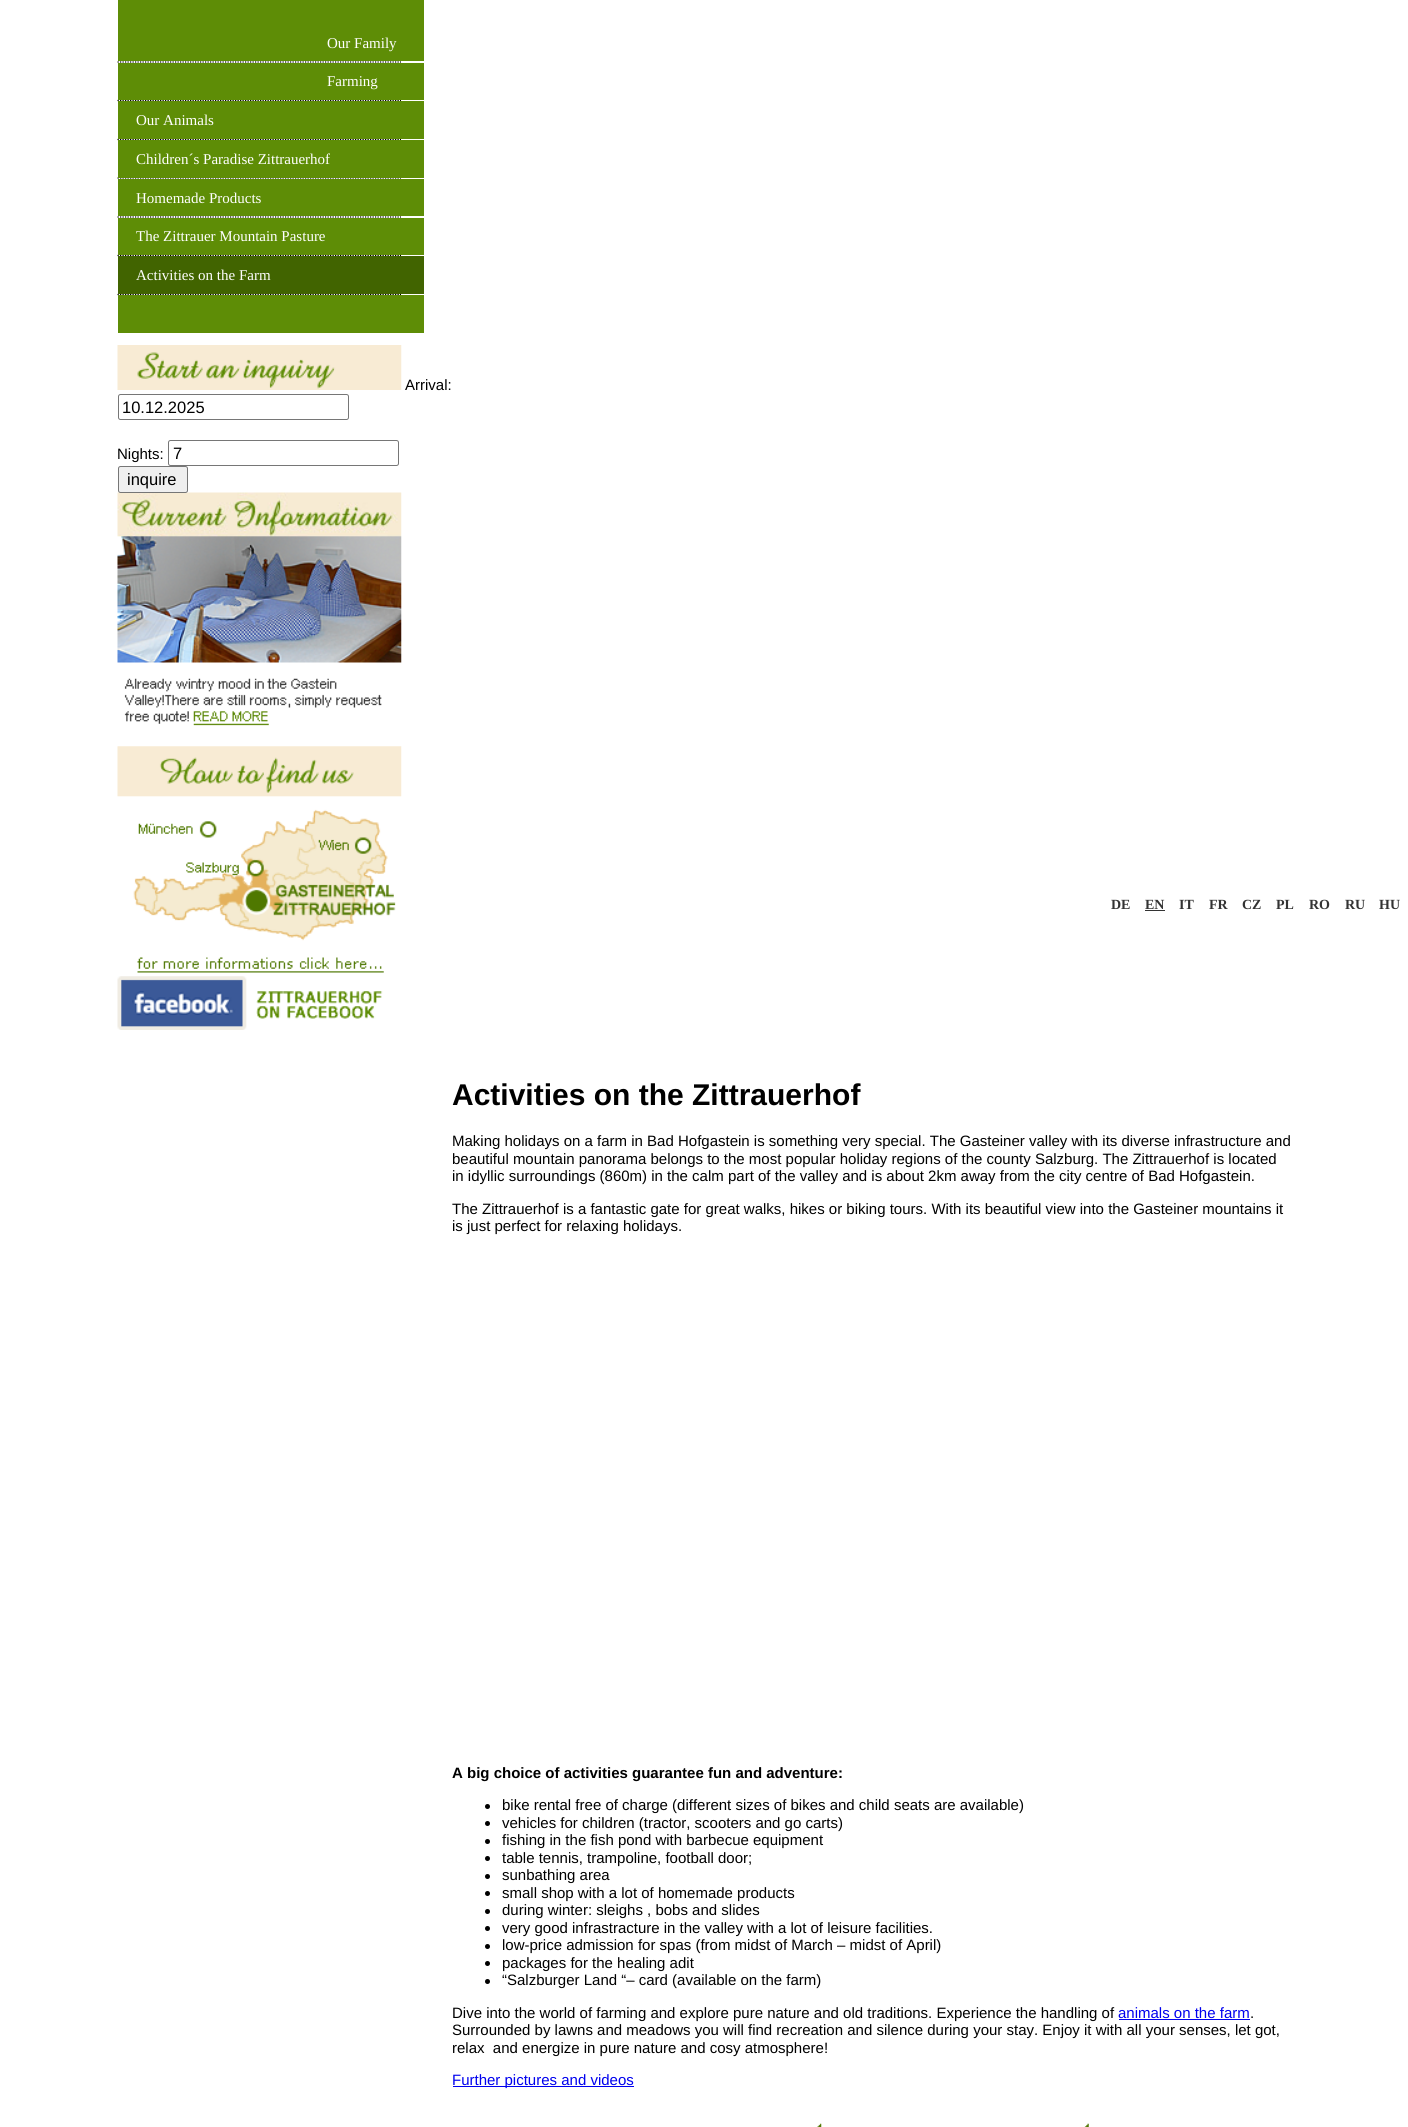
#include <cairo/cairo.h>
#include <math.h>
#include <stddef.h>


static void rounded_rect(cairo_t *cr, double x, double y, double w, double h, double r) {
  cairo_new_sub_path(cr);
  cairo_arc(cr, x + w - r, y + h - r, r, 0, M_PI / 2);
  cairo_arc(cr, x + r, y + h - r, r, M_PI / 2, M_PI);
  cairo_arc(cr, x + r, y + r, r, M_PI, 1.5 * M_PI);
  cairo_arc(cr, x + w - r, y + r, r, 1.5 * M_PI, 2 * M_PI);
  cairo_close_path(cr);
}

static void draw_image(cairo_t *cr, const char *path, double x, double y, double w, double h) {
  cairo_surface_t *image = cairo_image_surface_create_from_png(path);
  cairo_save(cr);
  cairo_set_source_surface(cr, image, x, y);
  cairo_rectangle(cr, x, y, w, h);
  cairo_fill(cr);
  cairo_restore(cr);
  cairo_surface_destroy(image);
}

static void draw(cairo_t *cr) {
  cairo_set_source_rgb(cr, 1, 1, 1);
  cairo_paint(cr);
  cairo_new_path(cr);
  cairo_move_to(cr, 117.5, 62);
  cairo_line_to(cr, 401, 62);
  cairo_set_source_rgb(cr, 0, 0, 0);
  cairo_set_line_width(cr, 1.2);
  cairo_set_dash(cr, (double[]){1.25, 1.25}, 2, 0);
  cairo_stroke(cr);
  cairo_set_source_rgb(cr, 94 / 255.0, 141 / 255.0, 6 / 255.0);
  cairo_rectangle(cr, 118, 0, 306, 61);
  cairo_fill(cr);
  cairo_new_path(cr);
  cairo_move_to(cr, 117.5, 100.5);
  cairo_line_to(cr, 401, 100.5);
  cairo_set_source_rgb(cr, 0, 0, 0);
  cairo_stroke(cr);
  cairo_set_source_rgb(cr, 94 / 255.0, 141 / 255.0, 6 / 255.0);
  cairo_rectangle(cr, 118, 63, 306, 37);
  cairo_fill(cr);
  cairo_new_path(cr);
  cairo_move_to(cr, 117.5, 139.5);
  cairo_line_to(cr, 401, 139.5);
  cairo_set_source_rgb(cr, 0, 0, 0);
  cairo_stroke(cr);
  cairo_set_source_rgb(cr, 94 / 255.0, 141 / 255.0, 6 / 255.0);
  cairo_rectangle(cr, 118, 101, 306, 38);
  cairo_fill(cr);
  cairo_new_path(cr);
  cairo_move_to(cr, 117.5, 178);
  cairo_line_to(cr, 401, 178);
  cairo_set_source_rgb(cr, 0, 0, 0);
  cairo_stroke(cr);
  cairo_set_source_rgb(cr, 94 / 255.0, 141 / 255.0, 6 / 255.0);
  cairo_rectangle(cr, 118, 140, 306, 38);
  cairo_fill(cr);
  cairo_new_path(cr);
  cairo_move_to(cr, 117.5, 217);
  cairo_line_to(cr, 401, 217);
  cairo_set_source_rgb(cr, 0, 0, 0);
  cairo_stroke(cr);
  cairo_set_source_rgb(cr, 94 / 255.0, 141 / 255.0, 6 / 255.0);
  cairo_rectangle(cr, 118, 179, 306, 37);
  cairo_fill(cr);
  cairo_new_path(cr);
  cairo_move_to(cr, 117.5, 255.5);
  cairo_line_to(cr, 401, 255.5);
  cairo_set_source_rgb(cr, 0, 0, 0);
  cairo_stroke(cr);
  cairo_set_source_rgb(cr, 94 / 255.0, 141 / 255.0, 6 / 255.0);
  cairo_rectangle(cr, 118, 218, 306, 37);
  cairo_fill(cr);
  cairo_new_path(cr);
  cairo_move_to(cr, 117.5, 294.5);
  cairo_line_to(cr, 401, 294.5);
  cairo_set_source_rgb(cr, 0, 0, 0);
  cairo_stroke(cr);
  cairo_set_source_rgb(cr, 65 / 255.0, 100 / 255.0, 0);
  cairo_rectangle(cr, 118, 256, 306, 38);
  cairo_fill(cr);
  cairo_set_source_rgb(cr, 94 / 255.0, 141 / 255.0, 6 / 255.0);
  cairo_rectangle(cr, 118, 295, 306, 38);
  cairo_fill(cr);
  draw_image(cr, "images/1.png", 117, 345, 285, 45);
  rounded_rect(cr, 118.5, 394.5, 230, 25, 2);
  cairo_set_source_rgb(cr, 118 / 255.0, 118 / 255.0, 118 / 255.0);
  cairo_set_line_width(cr, 1);
  cairo_set_dash(cr, NULL, 0, 0);
  cairo_stroke(cr);
  rounded_rect(cr, 168.5, 440.5, 230, 25, 2);
  cairo_stroke(cr);
  draw_image(cr, "images/2.png", 117, 492, 285, 234);
  cairo_set_source_rgb(cr, 239 / 255.0, 239 / 255.0, 239 / 255.0);
  rounded_rect(cr, 118.5, 466.5, 69, 26, 2);
  cairo_fill_preserve(cr);
  cairo_set_source_rgb(cr, 118 / 255.0, 118 / 255.0, 118 / 255.0);
  cairo_stroke(cr);
  draw_image(cr, "images/3.png", 117, 746, 285, 227);
  draw_image(cr, "images/4.png", 117, 976, 266, 54);
  cairo_set_source_rgb(cr, 0, 0, 0);
  cairo_arc(cr, 487.5, 1806.5, 2.5, 0, 2 * M_PI);
  cairo_fill(cr);
  cairo_arc(cr, 487.5, 1823.5, 2.5, 0, 2 * M_PI);
  cairo_fill(cr);
  cairo_arc(cr, 487.5, 1841.5, 2.5, 0, 2 * M_PI);
  cairo_fill(cr);
  cairo_arc(cr, 487.5, 1858.5, 2.5, 0, 2 * M_PI);
  cairo_fill(cr);
  cairo_arc(cr, 487.5, 1876.5, 2.5, 0, 2 * M_PI);
  cairo_fill(cr);
  cairo_arc(cr, 487.5, 1893.5, 2.5, 0, 2 * M_PI);
  cairo_fill(cr);
  cairo_arc(cr, 487.5, 1911.5, 2.5, 0, 2 * M_PI);
  cairo_fill(cr);
  cairo_arc(cr, 487.5, 1928.5, 2.5, 0, 2 * M_PI);
  cairo_fill(cr);
  cairo_arc(cr, 487.5, 1946.5, 2.5, 0, 2 * M_PI);
  cairo_fill(cr);
  cairo_arc(cr, 487.5, 1963.5, 2.5, 0, 2 * M_PI);
  cairo_fill(cr);
  cairo_arc(cr, 487.5, 1981.5, 2.5, 0, 2 * M_PI);
  cairo_fill(cr);
  cairo_set_source_rgb(cr, 0, 0, 238 / 255.0);
  cairo_rectangle(cr, 1119, 2019, 131, 1);
  cairo_fill(cr);
  cairo_rectangle(cr, 453, 2086, 181, 1);
  cairo_fill(cr);
  draw_image(cr, "images/5.png", 817, 2123, 5, 4);
  draw_image(cr, "images/6.png", 1084, 2123, 5, 4);
  cairo_set_source_rgb(cr, 51 / 255.0, 51 / 255.0, 51 / 255.0);
  cairo_rectangle(cr, 1145, 910, 20, 1);
  cairo_fill(cr);
  cairo_select_font_face(cr, "Liberation Serif", CAIRO_FONT_SLANT_NORMAL, CAIRO_FONT_WEIGHT_NORMAL);
  cairo_set_font_size(cr, 15);
  cairo_set_source_rgb(cr, 1, 1, 1);
  cairo_move_to(cr, 327, 48);
  cairo_show_text(cr, "Our Family");
  cairo_move_to(cr, 327, 86);
  cairo_show_text(cr, "Farming");
  cairo_move_to(cr, 136, 125);
  cairo_show_text(cr, "Our Animals");
  cairo_move_to(cr, 136, 164);
  cairo_show_text(cr, "Children´s Paradise Zittrauerhof");
  cairo_move_to(cr, 136, 203);
  cairo_show_text(cr, "Homemade Products");
  cairo_move_to(cr, 136, 241);
  cairo_show_text(cr, "The Zittrauer Mountain Pasture");
  cairo_move_to(cr, 136, 280);
  cairo_show_text(cr, "Activities on the Farm");
  cairo_select_font_face(cr, "Liberation Sans", CAIRO_FONT_SLANT_NORMAL, CAIRO_FONT_WEIGHT_NORMAL);
  cairo_set_source_rgb(cr, 0, 0, 0);
  cairo_move_to(cr, 405, 390);
  cairo_show_text(cr, "Arrival:");
  cairo_set_font_size(cr, 16.5);
  cairo_move_to(cr, 122, 413);
  cairo_show_text(cr, "10.12.2025");
  cairo_set_font_size(cr, 15);
  cairo_move_to(cr, 117, 459);
  cairo_show_text(cr, "Nights:");
  cairo_set_font_size(cr, 16.5);
  cairo_move_to(cr, 173, 459);
  cairo_show_text(cr, "7");
  cairo_move_to(cr, 127, 485);
  cairo_show_text(cr, "inquire");
  cairo_select_font_face(cr, "Liberation Sans", CAIRO_FONT_SLANT_NORMAL, CAIRO_FONT_WEIGHT_BOLD);
  cairo_set_font_size(cr, 30);
  cairo_move_to(cr, 452, 1105);
  cairo_show_text(cr, "Activities on the Zittrauerhof");
  cairo_select_font_face(cr, "Liberation Sans", CAIRO_FONT_SLANT_NORMAL, CAIRO_FONT_WEIGHT_NORMAL);
  cairo_set_font_size(cr, 15);
  cairo_move_to(cr, 452, 1146);
  cairo_show_text(cr, "Making holidays on a farm in Bad Hofgastein is something very special. The Gasteiner valley with its diverse infrastructure and");
  cairo_move_to(cr, 452, 1164);
  cairo_show_text(cr, "beautiful mountain panorama belongs to the most popular holiday regions of the county Salzburg. The Zittrauerhof is located");
  cairo_move_to(cr, 452, 1181);
  cairo_show_text(cr, "in idyllic surroundings (860m) in the calm part of the valley and is about 2km away from the city centre of Bad Hofgastein.");
  cairo_move_to(cr, 452, 1214);
  cairo_show_text(cr, "The Zittrauerhof is a fantastic gate for great walks, hikes or biking tours. With its beautiful view into the Gasteiner mountains it");
  cairo_move_to(cr, 452, 1231);
  cairo_show_text(cr, "is just perfect for relaxing holidays.");
  cairo_select_font_face(cr, "Liberation Sans", CAIRO_FONT_SLANT_NORMAL, CAIRO_FONT_WEIGHT_BOLD);
  cairo_move_to(cr, 452, 1778);
  cairo_show_text(cr, "A big choice of activities guarantee fun and adventure:");
  cairo_select_font_face(cr, "Liberation Sans", CAIRO_FONT_SLANT_NORMAL, CAIRO_FONT_WEIGHT_NORMAL);
  cairo_move_to(cr, 502, 1810);
  cairo_show_text(cr, "bike rental free of charge (different sizes of bikes and child seats are available)");
  cairo_move_to(cr, 502, 1828);
  cairo_show_text(cr, "vehicles for children (tractor, scooters and go carts)");
  cairo_move_to(cr, 502, 1845);
  cairo_show_text(cr, "fishing in the fish pond with barbecue equipment");
  cairo_move_to(cr, 502, 1863);
  cairo_show_text(cr, "table tennis, trampoline, football door;");
  cairo_move_to(cr, 502, 1880);
  cairo_show_text(cr, "sunbathing area");
  cairo_move_to(cr, 502, 1898);
  cairo_show_text(cr, "small shop with a lot of homemade products");
  cairo_move_to(cr, 502, 1915);
  cairo_show_text(cr, "during winter: sleighs , bobs and slides");
  cairo_move_to(cr, 502, 1933);
  cairo_show_text(cr, "very good infrastracture in the valley with a lot of leisure facilities.");
  cairo_move_to(cr, 502, 1950);
  cairo_show_text(cr, "low-price admission for spas (from midst of March – midst of April)");
  cairo_move_to(cr, 502, 1968);
  cairo_show_text(cr, "packages for the healing adit");
  cairo_move_to(cr, 502, 1985);
  cairo_show_text(cr, "“Salzburger Land “– card (available on the farm)");
  cairo_move_to(cr, 452, 2018);
  cairo_show_text(cr, "Dive into the world of farming and explore pure nature and old traditions. Experience the handling of");
  cairo_set_source_rgb(cr, 0, 0, 238 / 255.0);
  cairo_move_to(cr, 1118, 2018);
  cairo_show_text(cr, "animals on the farm");
  cairo_set_source_rgb(cr, 0, 0, 0);
  cairo_move_to(cr, 1250, 2018);
  cairo_show_text(cr, ".");
  cairo_move_to(cr, 452, 2035);
  cairo_show_text(cr, "Surrounded by lawns and meadows you will find recreation and silence during your stay. Enjoy it with all your senses, let got,");
  cairo_move_to(cr, 452, 2053);
  cairo_show_text(cr, "relax  and energize in pure nature and cosy atmosphere!");
  cairo_set_source_rgb(cr, 0, 0, 238 / 255.0);
  cairo_move_to(cr, 452, 2085);
  cairo_show_text(cr, "Further pictures and videos");
  cairo_select_font_face(cr, "Liberation Serif", CAIRO_FONT_SLANT_NORMAL, CAIRO_FONT_WEIGHT_BOLD);
  cairo_set_font_size(cr, 14);
  cairo_set_source_rgb(cr, 51 / 255.0, 51 / 255.0, 51 / 255.0);
  cairo_move_to(cr, 1111, 909);
  cairo_show_text(cr, "DE");
  cairo_move_to(cr, 1145, 909);
  cairo_show_text(cr, "EN");
  cairo_move_to(cr, 1179, 909);
  cairo_show_text(cr, "IT");
  cairo_move_to(cr, 1209, 909);
  cairo_show_text(cr, "FR");
  cairo_move_to(cr, 1242, 909);
  cairo_show_text(cr, "CZ");
  cairo_move_to(cr, 1276, 909);
  cairo_show_text(cr, "PL");
  cairo_move_to(cr, 1309, 909);
  cairo_show_text(cr, "RO");
  cairo_move_to(cr, 1345, 909);
  cairo_show_text(cr, "RU");
  cairo_move_to(cr, 1379, 909);
  cairo_show_text(cr, "HU");
}

int main(void) {
  cairo_surface_t *surface = cairo_image_surface_create(CAIRO_FORMAT_RGB24, 1408, 2127);
  cairo_t *cr = cairo_create(surface);
  cairo_font_options_t *options = cairo_font_options_create();
  cairo_font_options_set_hint_metrics(options, CAIRO_HINT_METRICS_OFF);
  cairo_font_options_set_hint_style(options, CAIRO_HINT_STYLE_NONE);
  cairo_set_font_options(cr, options);
  cairo_set_miter_limit(cr, 4);
  draw(cr);
  cairo_surface_write_to_png(surface, "out.png");
  cairo_font_options_destroy(options);
  cairo_destroy(cr);
  cairo_surface_destroy(surface);
  return 0;
}
